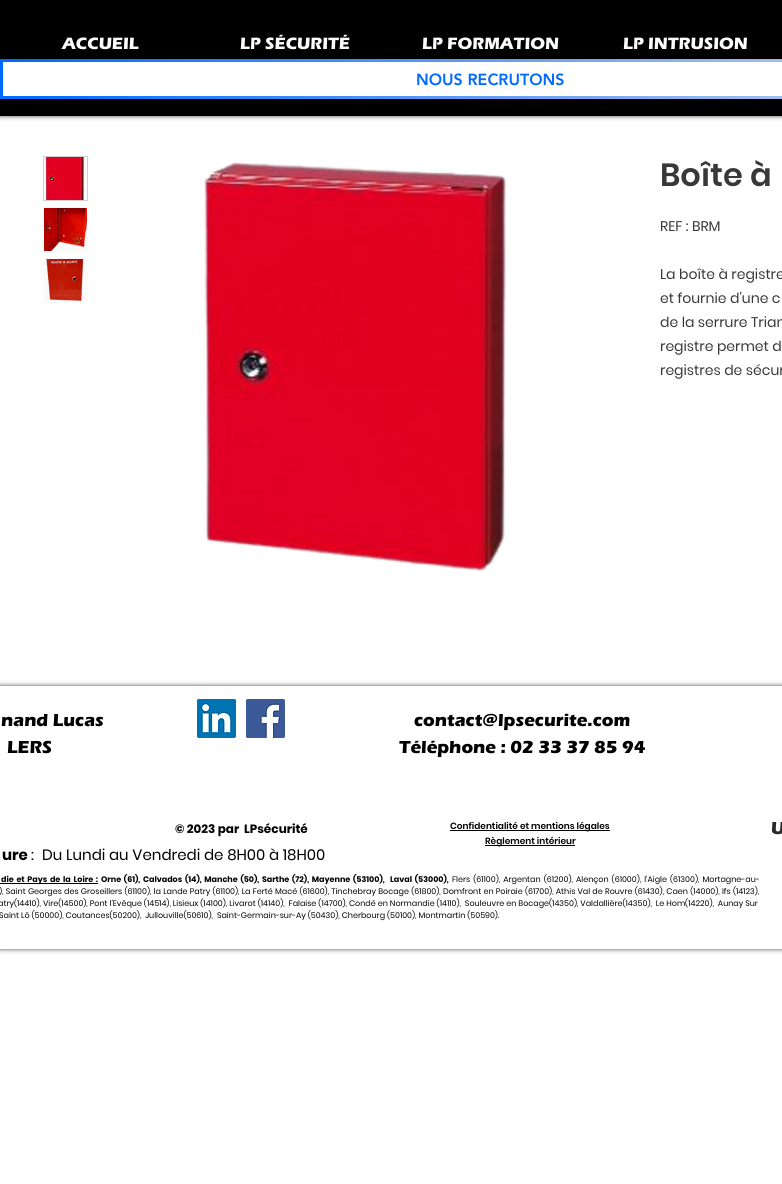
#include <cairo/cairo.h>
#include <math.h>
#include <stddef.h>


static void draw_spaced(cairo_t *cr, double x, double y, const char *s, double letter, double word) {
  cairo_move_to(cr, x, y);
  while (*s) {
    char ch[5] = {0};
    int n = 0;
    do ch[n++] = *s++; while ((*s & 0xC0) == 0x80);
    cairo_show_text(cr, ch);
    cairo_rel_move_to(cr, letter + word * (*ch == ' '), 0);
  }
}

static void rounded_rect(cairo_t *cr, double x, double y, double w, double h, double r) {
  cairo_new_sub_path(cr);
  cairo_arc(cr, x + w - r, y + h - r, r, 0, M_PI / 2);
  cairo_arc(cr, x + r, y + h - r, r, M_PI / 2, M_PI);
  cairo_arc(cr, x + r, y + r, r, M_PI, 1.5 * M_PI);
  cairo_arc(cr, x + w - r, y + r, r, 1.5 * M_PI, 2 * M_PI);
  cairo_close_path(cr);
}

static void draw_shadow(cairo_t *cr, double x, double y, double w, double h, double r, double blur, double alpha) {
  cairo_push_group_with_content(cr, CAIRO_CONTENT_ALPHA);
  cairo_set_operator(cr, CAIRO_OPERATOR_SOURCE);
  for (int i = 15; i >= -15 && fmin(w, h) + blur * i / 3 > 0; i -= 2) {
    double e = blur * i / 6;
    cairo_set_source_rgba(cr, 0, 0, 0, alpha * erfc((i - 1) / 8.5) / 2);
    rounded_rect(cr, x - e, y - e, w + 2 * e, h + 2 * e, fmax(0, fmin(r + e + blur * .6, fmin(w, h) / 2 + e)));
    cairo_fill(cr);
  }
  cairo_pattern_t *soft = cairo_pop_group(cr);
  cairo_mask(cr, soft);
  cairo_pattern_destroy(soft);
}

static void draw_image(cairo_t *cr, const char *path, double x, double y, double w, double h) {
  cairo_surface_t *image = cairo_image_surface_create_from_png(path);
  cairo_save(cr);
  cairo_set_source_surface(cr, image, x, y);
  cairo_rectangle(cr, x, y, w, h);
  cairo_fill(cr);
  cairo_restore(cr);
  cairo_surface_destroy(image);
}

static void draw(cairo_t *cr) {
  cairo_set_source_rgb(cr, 1, 1, 1);
  cairo_paint(cr);
  cairo_set_source_rgb(cr, 0, 0, 0);
  draw_shadow(cr, 0, 0, 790, 116, 0, 2.5, 0.7);
  cairo_set_source_rgb(cr, 0, 0, 0);
  cairo_rectangle(cr, 0, 0, 782, 116);
  cairo_fill(cr);
  cairo_set_source_rgb(cr, 1, 1, 1);
  cairo_rectangle(cr, 3, 62, 779, 34);
  cairo_fill(cr);
  draw_image(cr, "images/1.png", 0, 59, 782, 40);
  cairo_set_source_rgb(cr, 250 / 255.0, 250 / 255.0, 250 / 255.0);
  cairo_rectangle(cr, 43.5, 156.5, 44, 44);
  cairo_fill_preserve(cr);
  cairo_set_source_rgb(cr, 209 / 255.0, 207 / 255.0, 207 / 255.0);
  cairo_set_line_width(cr, 1);
  cairo_stroke(cr);
  draw_image(cr, "images/2.png", 45, 157, 39, 43);
  cairo_set_source_rgb(cr, 250 / 255.0, 250 / 255.0, 250 / 255.0);
  cairo_rectangle(cr, 43, 207, 45, 45);
  cairo_fill(cr);
  draw_image(cr, "images/3.png", 44, 208, 43, 43);
  cairo_rectangle(cr, 43, 258, 45, 45);
  cairo_fill(cr);
  draw_image(cr, "images/4.png", 46, 259, 38, 42);
  draw_image(cr, "images/5.png", 204, 162, 303, 409);
  cairo_save(cr);
  cairo_set_fill_rule(cr, CAIRO_FILL_RULE_EVEN_ODD);
  cairo_new_path(cr);
  cairo_move_to(cr, 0, 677);
  cairo_line_to(cr, 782, 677);
  cairo_line_to(cr, 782, 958);
  cairo_line_to(cr, 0, 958);
  cairo_close_path(cr);
  cairo_move_to(cr, 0, 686);
  cairo_line_to(cr, 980, 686);
  cairo_line_to(cr, 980, 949);
  cairo_line_to(cr, 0, 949);
  cairo_close_path(cr);
  cairo_clip(cr);
  cairo_set_source_rgb(cr, 0, 0, 0);
  draw_shadow(cr, 0, 686, 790, 263, 0, 2.5, 0.7);
  cairo_restore(cr);
  draw_image(cr, "images/6.png", 197, 699, 39, 39);
  draw_image(cr, "images/7.png", 246, 699, 39, 39);
  cairo_set_source_rgb(cr, 0, 0, 0);
  cairo_rectangle(cr, 450, 830, 160, 1);
  cairo_fill(cr);
  cairo_rectangle(cr, 485, 845, 90, 1);
  cairo_fill(cr);
  cairo_rectangle(cr, 0, 883, 98, 1);
  cairo_fill(cr);
  cairo_select_font_face(cr, "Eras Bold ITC", CAIRO_FONT_SLANT_NORMAL, CAIRO_FONT_WEIGHT_BOLD);
  cairo_set_font_size(cr, 17);
  cairo_set_source_rgb(cr, 252 / 255.0, 252 / 255.0, 252 / 255.0);
  cairo_move_to(cr, 62, 49);
  cairo_show_text(cr, "ACCUEIL");
  cairo_move_to(cr, 240, 49);
  cairo_show_text(cr, "LP SÉCURITÉ");
  cairo_move_to(cr, 422, 49);
  cairo_show_text(cr, "LP FORMATION");
  cairo_move_to(cr, 623, 49);
  cairo_show_text(cr, "LP INTRUSION");
  cairo_select_font_face(cr, "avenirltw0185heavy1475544 Black", CAIRO_FONT_SLANT_NORMAL, CAIRO_FONT_WEIGHT_NORMAL);
  cairo_set_font_size(cr, 16);
  cairo_set_source_rgb(cr, 0, 105 / 255.0, 1);
  cairo_move_to(cr, 416, 85);
  cairo_show_text(cr, "NOUS RECRUTONS");
  cairo_select_font_face(cr, "Poppins SemiBold", CAIRO_FONT_SLANT_NORMAL, CAIRO_FONT_WEIGHT_NORMAL);
  cairo_set_font_size(cr, 32);
  cairo_set_source_rgb(cr, 56 / 255.0, 56 / 255.0, 56 / 255.0);
  cairo_move_to(cr, 660, 186);
  cairo_show_text(cr, "Boîte à");
  cairo_select_font_face(cr, "Poppins", CAIRO_FONT_SLANT_NORMAL, CAIRO_FONT_WEIGHT_NORMAL);
  cairo_set_font_size(cr, 14);
  cairo_move_to(cr, 660, 231);
  cairo_show_text(cr, "REF : BRM");
  cairo_move_to(cr, 660, 279);
  cairo_show_text(cr, "La boîte à registre");
  cairo_move_to(cr, 660, 303);
  cairo_show_text(cr, "et fournie d'une c");
  cairo_move_to(cr, 660, 327);
  cairo_show_text(cr, "de la serrure Trian");
  cairo_move_to(cr, 660, 351);
  cairo_show_text(cr, "registre permet d");
  cairo_move_to(cr, 660, 375);
  cairo_show_text(cr, "registres de sécur");
  cairo_select_font_face(cr, "Eras Bold ITC", CAIRO_FONT_SLANT_NORMAL, CAIRO_FONT_WEIGHT_BOLD);
  cairo_set_font_size(cr, 18);
  cairo_set_source_rgb(cr, 0, 0, 0);
  cairo_move_to(cr, 1, 726);
  cairo_show_text(cr, "nand Lucas");
  cairo_move_to(cr, 7, 753);
  cairo_show_text(cr, "LERS");
  cairo_move_to(cr, 414, 726);
  cairo_show_text(cr, "contact@lpsecurite.com");
  cairo_move_to(cr, 399, 753);
  cairo_show_text(cr, "Téléphone : 02 33 37 85 94");
  cairo_select_font_face(cr, "Poppins", CAIRO_FONT_SLANT_NORMAL, CAIRO_FONT_WEIGHT_BOLD);
  cairo_set_font_size(cr, 12);
  cairo_move_to(cr, 175, 833);
  cairo_show_text(cr, "© 2023 par  LPsécurité");
  cairo_select_font_face(cr, "Poppins SemiBold", CAIRO_FONT_SLANT_NORMAL, CAIRO_FONT_WEIGHT_NORMAL);
  cairo_set_font_size(cr, 9);
  cairo_move_to(cr, 450, 829);
  cairo_show_text(cr, "Confidentialité et mentions légales");
  cairo_select_font_face(cr, "Eras Bold ITC", CAIRO_FONT_SLANT_NORMAL, CAIRO_FONT_WEIGHT_BOLD);
  cairo_set_font_size(cr, 18);
  cairo_set_source_rgb(cr, 41 / 255.0, 41 / 255.0, 41 / 255.0);
  cairo_move_to(cr, 771, 834);
  cairo_show_text(cr, "U");
  cairo_select_font_face(cr, "Poppins SemiBold", CAIRO_FONT_SLANT_NORMAL, CAIRO_FONT_WEIGHT_NORMAL);
  cairo_set_font_size(cr, 9);
  cairo_set_source_rgb(cr, 0, 0, 0);
  cairo_move_to(cr, 485, 844);
  cairo_show_text(cr, "Règlement intérieur");
  cairo_select_font_face(cr, "Poppins", CAIRO_FONT_SLANT_NORMAL, CAIRO_FONT_WEIGHT_BOLD);
  cairo_set_font_size(cr, 15);
  cairo_move_to(cr, 2, 860);
  cairo_show_text(cr, "ure");
  cairo_select_font_face(cr, "Poppins", CAIRO_FONT_SLANT_NORMAL, CAIRO_FONT_WEIGHT_NORMAL);
  cairo_move_to(cr, 31, 860);
  cairo_show_text(cr, ":");
  cairo_move_to(cr, 42, 860);
  cairo_show_text(cr, "Du Lundi au Vendredi de 8H00 à 18H00");
  cairo_select_font_face(cr, "Poppins", CAIRO_FONT_SLANT_NORMAL, CAIRO_FONT_WEIGHT_BOLD);
  cairo_set_font_size(cr, 8);
  draw_spaced(cr, 1, 882, "die et Pays de la Loire :", 0, 1.1);
  draw_spaced(cr, 101, 882, "Orne (61), Calvados (14), Manche (50), Sarthe (72), Mayenne (53100),  Laval (53000),", 0, 1.1);
  cairo_select_font_face(cr, "Poppins", CAIRO_FONT_SLANT_NORMAL, CAIRO_FONT_WEIGHT_NORMAL);
  draw_spaced(cr, 452, 882, "Flers (61100), Argentan (61200), Alençon (61000), l'Aigle (61300), Mortagne-au-", 0, 1.1);
  draw_spaced(cr, -1, 894, "), Saint Georges des Groseillers (61100), la Lande Patry (61100), La Ferté Macé (61600), Tinchebray Bocage (61800), Domfront en Poiraie (61700), Athis Val de Rouvre (61430), Caen (14000), Ifs (14123),", 0, 0.25);
  cairo_move_to(cr, -2, 906);
  cairo_show_text(cr, "atry(14410), Vire(14500), Pont l'Evêque (14514), Lisieux (14100), Livarot (14140),  Falaise (14700), Condé en Normandie (14110),  Souleuvre en Bocage(14350), Valdallière(14350),  Le Hom(14220),  Aunay Sur");
  cairo_move_to(cr, -1, 918);
  cairo_show_text(cr, "Saint Lô (50000), Coutances(50200),  Jullouville(50610),  Saint-Germain-sur-Ay (50430), Cherbourg (50100), Montmartin (50590).");
}

int main(void) {
  cairo_surface_t *surface = cairo_image_surface_create(CAIRO_FORMAT_RGB24, 782, 1184);
  cairo_t *cr = cairo_create(surface);
  cairo_font_options_t *options = cairo_font_options_create();
  cairo_font_options_set_hint_metrics(options, CAIRO_HINT_METRICS_OFF);
  cairo_font_options_set_hint_style(options, CAIRO_HINT_STYLE_NONE);
  cairo_set_font_options(cr, options);
  cairo_set_miter_limit(cr, 4);
  draw(cr);
  cairo_surface_write_to_png(surface, "out.png");
  cairo_font_options_destroy(options);
  cairo_destroy(cr);
  cairo_surface_destroy(surface);
  return 0;
}
